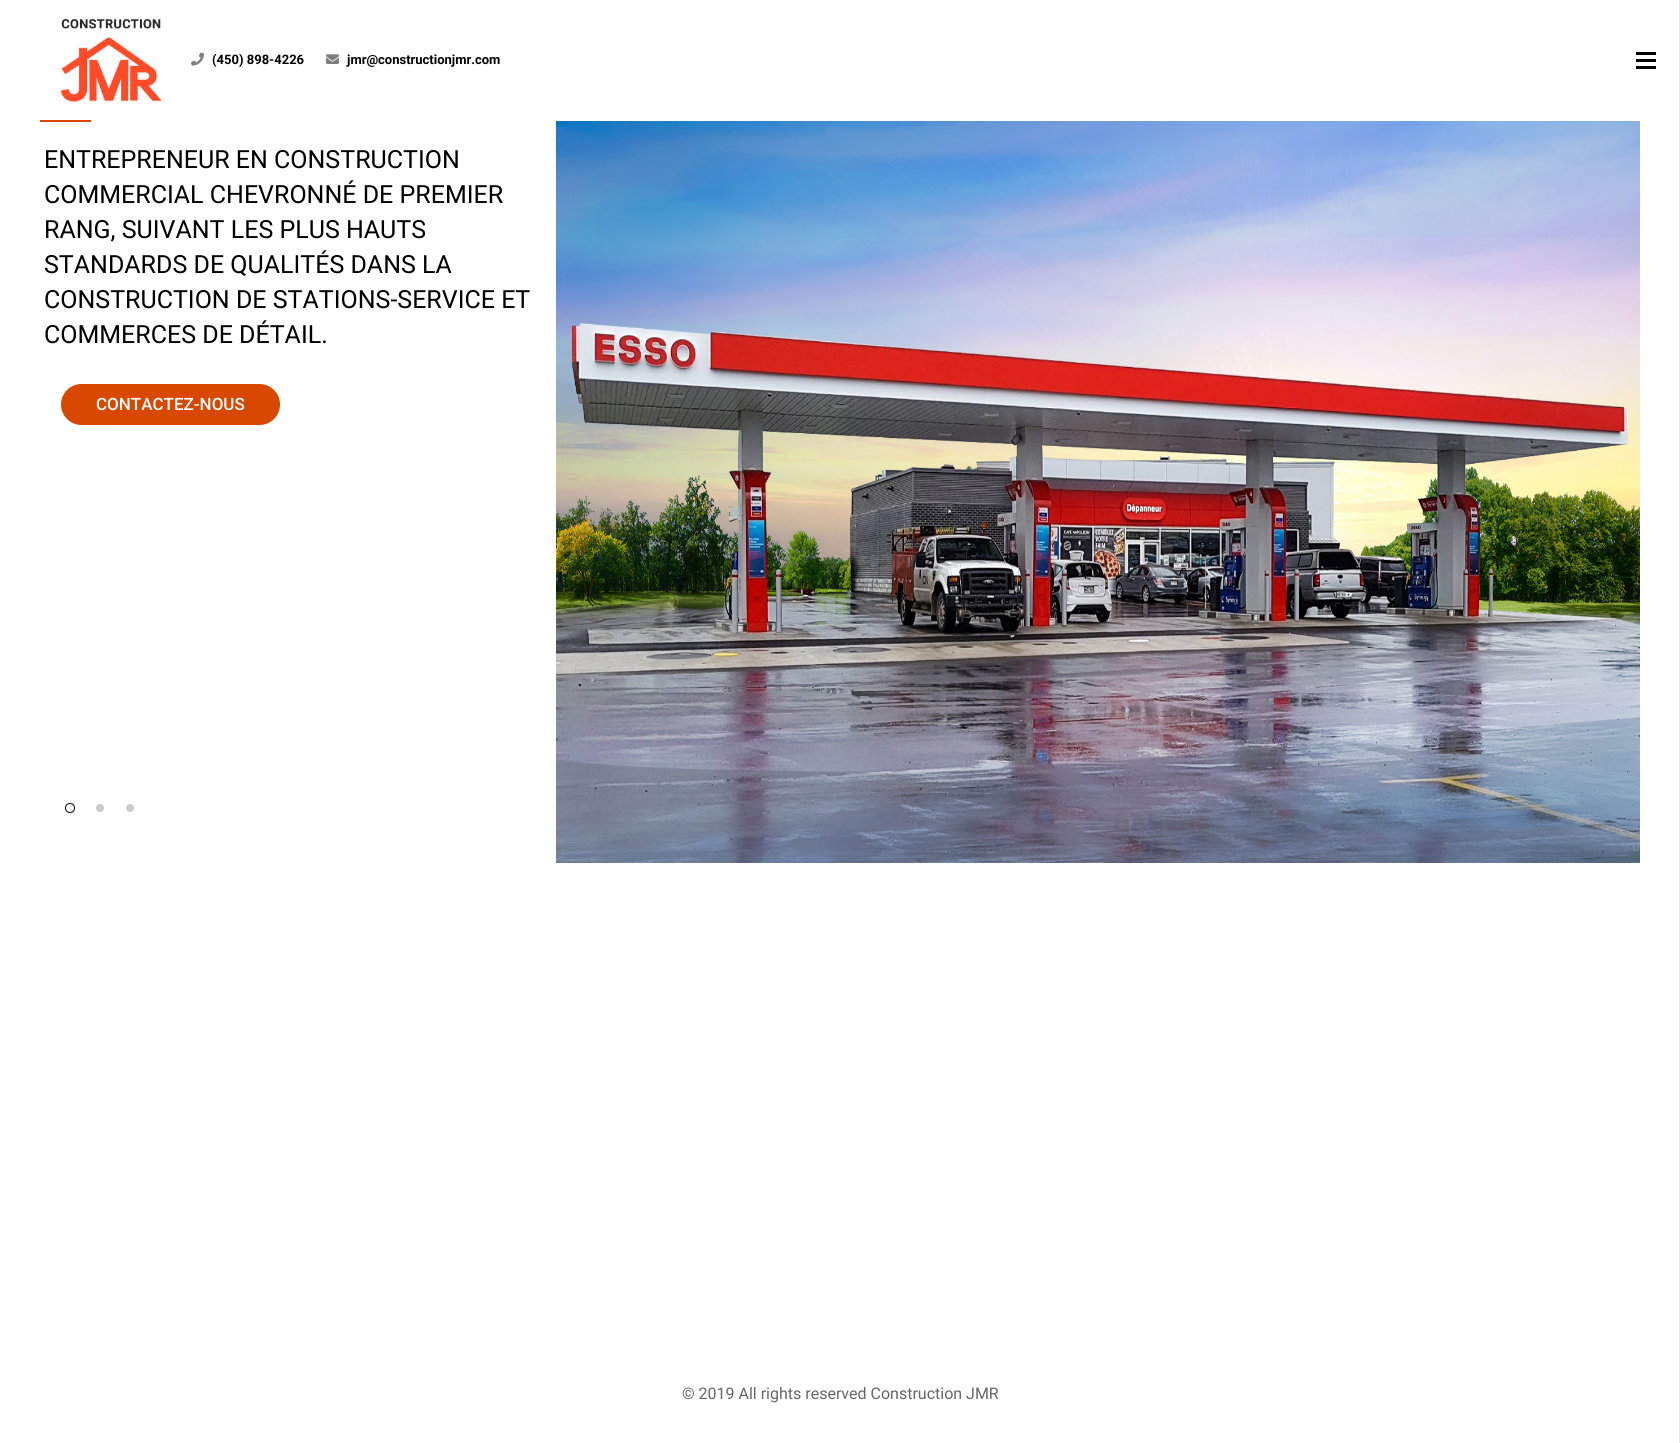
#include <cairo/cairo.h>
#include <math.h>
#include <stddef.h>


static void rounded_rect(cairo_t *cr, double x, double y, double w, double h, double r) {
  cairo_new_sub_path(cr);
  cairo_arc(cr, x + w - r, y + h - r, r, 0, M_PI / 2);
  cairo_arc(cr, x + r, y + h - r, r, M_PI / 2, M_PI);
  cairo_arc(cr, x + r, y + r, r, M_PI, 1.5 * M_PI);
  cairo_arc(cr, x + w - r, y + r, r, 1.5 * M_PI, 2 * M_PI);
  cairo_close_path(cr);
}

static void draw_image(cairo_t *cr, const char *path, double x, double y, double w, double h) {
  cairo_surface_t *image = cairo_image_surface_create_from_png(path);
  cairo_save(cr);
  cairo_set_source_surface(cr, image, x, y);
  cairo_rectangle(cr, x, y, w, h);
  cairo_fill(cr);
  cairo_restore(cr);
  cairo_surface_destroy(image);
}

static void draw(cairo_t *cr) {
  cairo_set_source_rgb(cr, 1, 1, 1);
  cairo_paint(cr);
  draw_image(cr, "images/1.png", 60, 18, 102, 84);
  draw_image(cr, "images/2.png", 191, 52, 13, 14);
  draw_image(cr, "images/3.png", 326, 54, 13, 10);
  cairo_set_source_rgb(cr, 0, 0, 0);
  cairo_rectangle(cr, 1636, 59, 20, 3);
  cairo_fill(cr);
  cairo_rectangle(cr, 1636, 52, 20, 3);
  cairo_fill(cr);
  cairo_rectangle(cr, 1636, 66, 20, 3);
  cairo_fill(cr);
  cairo_set_source_rgb(cr, 235 / 255.0, 235 / 255.0, 235 / 255.0);
  cairo_rectangle(cr, 1679, 0, 1, 1443);
  cairo_fill(cr);
  cairo_set_source_rgb(cr, 216 / 255.0, 72 / 255.0, 1 / 255.0);
  cairo_rectangle(cr, 40, 120, 51, 2);
  cairo_fill(cr);
  draw_image(cr, "images/4.png", 556, 121, 1084, 742);
  rounded_rect(cr, 61, 384, 219, 41, 20.5);
  cairo_fill(cr);
  cairo_arc(cr, 70, 808, 4.5, 0, 2 * M_PI);
  cairo_set_source_rgb(cr, 0, 0, 0);
  cairo_set_line_width(cr, 1);
  cairo_stroke(cr);
  cairo_set_source_rgb(cr, 204 / 255.0, 204 / 255.0, 204 / 255.0);
  cairo_arc(cr, 100, 808, 4, 0, 2 * M_PI);
  cairo_fill(cr);
  cairo_arc(cr, 130, 808, 4, 0, 2 * M_PI);
  cairo_fill(cr);
  cairo_select_font_face(cr, "Roboto", CAIRO_FONT_SLANT_NORMAL, CAIRO_FONT_WEIGHT_BOLD);
  cairo_set_font_size(cr, 13);
  cairo_set_source_rgb(cr, 0, 0, 0);
  cairo_move_to(cr, 212, 64);
  cairo_show_text(cr, "(450) 898-4226");
  cairo_move_to(cr, 347, 64);
  cairo_show_text(cr, "jmr@constructionjmr.com");
  cairo_select_font_face(cr, "Roboto", CAIRO_FONT_SLANT_NORMAL, CAIRO_FONT_WEIGHT_NORMAL);
  cairo_set_font_size(cr, 25);
  cairo_move_to(cr, 44, 168);
  cairo_show_text(cr, "ENTREPRENEUR EN CONSTRUCTION");
  cairo_move_to(cr, 44, 203);
  cairo_show_text(cr, "COMMERCIAL CHEVRONNÉ DE PREMIER");
  cairo_move_to(cr, 44, 238);
  cairo_show_text(cr, "RANG, SUIVANT LES PLUS HAUTS");
  cairo_move_to(cr, 44, 273);
  cairo_show_text(cr, "STANDARDS DE QUALITÉS DANS LA");
  cairo_move_to(cr, 44, 308);
  cairo_show_text(cr, "CONSTRUCTION DE STATIONS-SERVICE ET");
  cairo_move_to(cr, 44, 343);
  cairo_show_text(cr, "COMMERCES DE DÉTAIL.");
  cairo_select_font_face(cr, "Roboto Medium", CAIRO_FONT_SLANT_NORMAL, CAIRO_FONT_WEIGHT_NORMAL);
  cairo_set_font_size(cr, 17);
  cairo_set_source_rgb(cr, 1, 1, 1);
  cairo_move_to(cr, 96, 410);
  cairo_show_text(cr, "CONTACTEZ-NOUS");
  cairo_select_font_face(cr, "Roboto", CAIRO_FONT_SLANT_NORMAL, CAIRO_FONT_WEIGHT_NORMAL);
  cairo_set_font_size(cr, 16);
  cairo_set_source_rgb(cr, 102 / 255.0, 102 / 255.0, 102 / 255.0);
  cairo_move_to(cr, 682, 1399);
  cairo_show_text(cr, "© 2019 All rights reserved Construction JMR");
}

int main(void) {
  cairo_surface_t *surface = cairo_image_surface_create(CAIRO_FORMAT_RGB24, 1680, 1443);
  cairo_t *cr = cairo_create(surface);
  cairo_font_options_t *options = cairo_font_options_create();
  cairo_font_options_set_hint_metrics(options, CAIRO_HINT_METRICS_OFF);
  cairo_font_options_set_hint_style(options, CAIRO_HINT_STYLE_NONE);
  cairo_set_font_options(cr, options);
  cairo_set_miter_limit(cr, 4);
  draw(cr);
  cairo_surface_write_to_png(surface, "out.png");
  cairo_font_options_destroy(options);
  cairo_destroy(cr);
  cairo_surface_destroy(surface);
  return 0;
}
